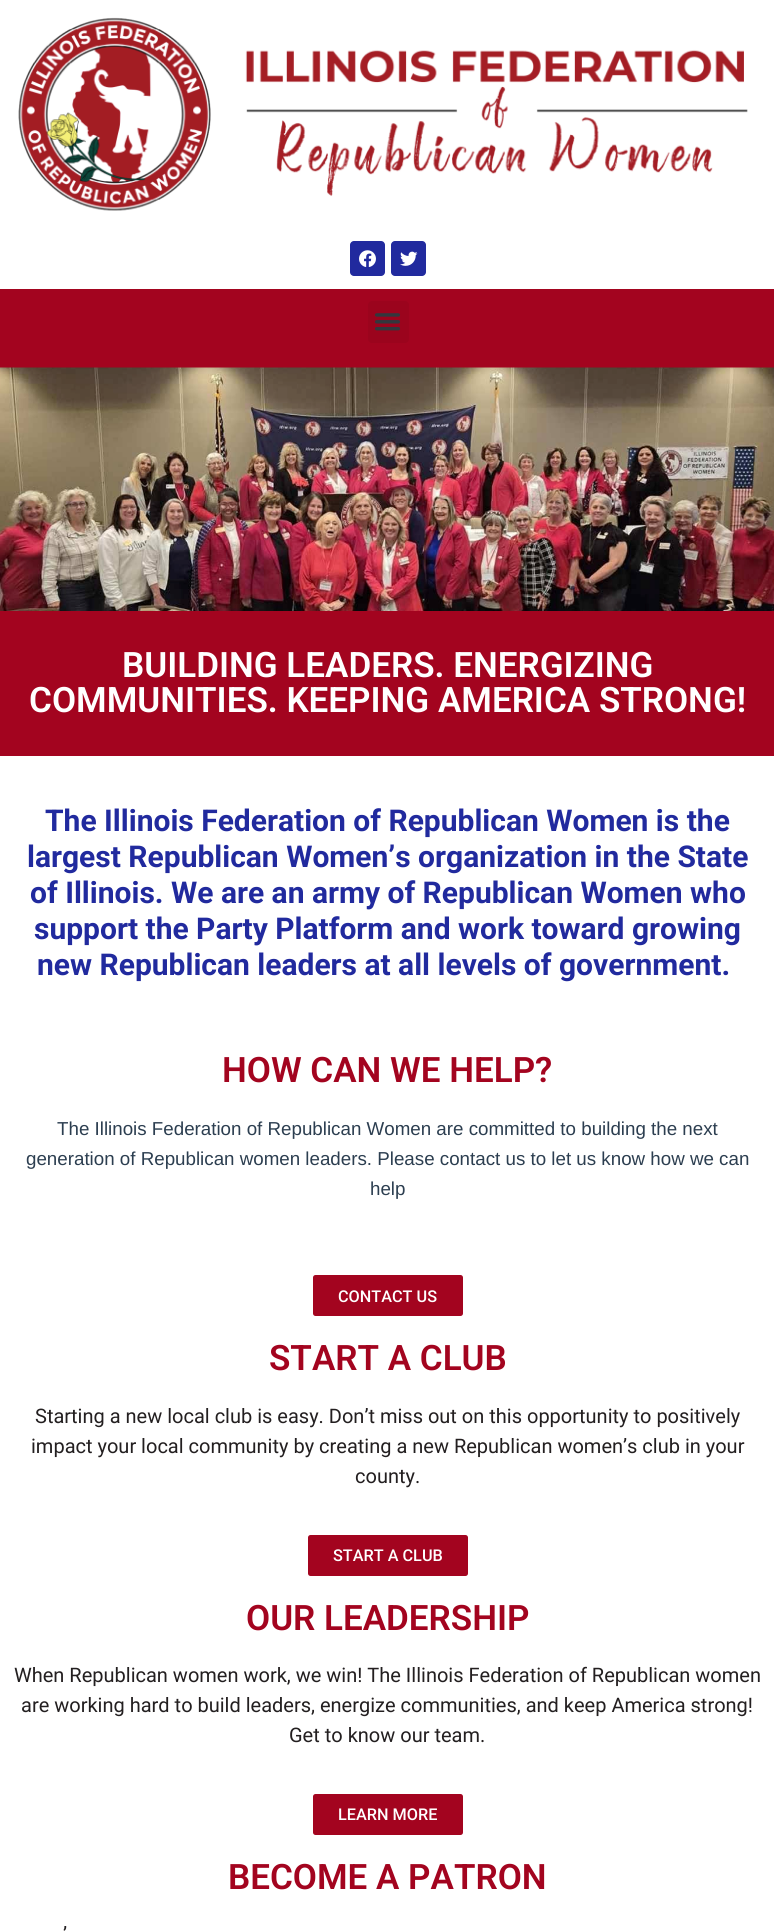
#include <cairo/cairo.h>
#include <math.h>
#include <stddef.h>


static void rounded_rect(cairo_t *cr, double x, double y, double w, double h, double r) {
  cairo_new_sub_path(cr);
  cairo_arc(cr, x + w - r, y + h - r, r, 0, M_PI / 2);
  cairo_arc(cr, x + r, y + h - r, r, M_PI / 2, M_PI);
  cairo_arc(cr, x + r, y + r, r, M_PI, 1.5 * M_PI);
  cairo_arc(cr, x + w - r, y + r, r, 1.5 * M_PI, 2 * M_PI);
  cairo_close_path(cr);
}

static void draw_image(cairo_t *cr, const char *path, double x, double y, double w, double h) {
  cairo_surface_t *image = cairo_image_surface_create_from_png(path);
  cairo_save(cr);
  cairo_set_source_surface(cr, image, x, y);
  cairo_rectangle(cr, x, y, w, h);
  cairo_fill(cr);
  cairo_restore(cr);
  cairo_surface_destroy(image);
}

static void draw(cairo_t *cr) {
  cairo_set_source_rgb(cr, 1, 1, 1);
  cairo_paint(cr);
  draw_image(cr, "images/1.png", 18, 17, 730, 194);
  cairo_set_source_rgb(cr, 33 / 255.0, 42 / 255.0, 158 / 255.0);
  rounded_rect(cr, 350, 241, 35, 35, 4);
  cairo_fill(cr);
  draw_image(cr, "images/2.png", 359, 250, 17, 17);
  rounded_rect(cr, 391, 241, 35, 35, 4);
  cairo_fill(cr);
  draw_image(cr, "images/3.png", 400, 251, 18, 15);
  cairo_set_source_rgb(cr, 163 / 255.0, 4 / 255.0, 31 / 255.0);
  cairo_rectangle(cr, 0, 289, 774, 79);
  cairo_fill(cr);
  cairo_set_source_rgb(cr, 155 / 255.0, 4 / 255.0, 29 / 255.0);
  rounded_rect(cr, 368, 301, 41, 42, 4);
  cairo_fill(cr);
  draw_image(cr, "images/4.png", 374, 313, 27, 18);
  draw_image(cr, "images/5.png", 0, 367, 774, 244);
  cairo_set_source_rgb(cr, 163 / 255.0, 4 / 255.0, 31 / 255.0);
  cairo_rectangle(cr, 0, 611, 774, 145);
  cairo_fill(cr);
  rounded_rect(cr, 313, 1275, 150, 41, 2.5);
  cairo_fill(cr);
  rounded_rect(cr, 308, 1535, 160, 41, 2.5);
  cairo_fill(cr);
  rounded_rect(cr, 313, 1794, 150, 41, 2.5);
  cairo_fill(cr);
  cairo_select_font_face(cr, "Roboto SemiBold", CAIRO_FONT_SLANT_NORMAL, CAIRO_FONT_WEIGHT_NORMAL);
  cairo_set_font_size(cr, 35);
  cairo_set_source_rgb(cr, 1, 1, 1);
  cairo_move_to(cr, 122, 677);
  cairo_show_text(cr, "BUILDING LEADERS. ENERGIZING");
  cairo_move_to(cr, 29, 712);
  cairo_show_text(cr, "COMMUNITIES. KEEPING AMERICA STRONG!");
  cairo_select_font_face(cr, "Roboto", CAIRO_FONT_SLANT_NORMAL, CAIRO_FONT_WEIGHT_BOLD);
  cairo_set_font_size(cr, 30);
  cairo_set_source_rgb(cr, 33 / 255.0, 42 / 255.0, 158 / 255.0);
  cairo_move_to(cr, 45, 831);
  cairo_show_text(cr, "The Illinois Federation of Republican Women is the");
  cairo_move_to(cr, 27, 867);
  cairo_show_text(cr, "largest Republican Women’s organization in the State");
  cairo_move_to(cr, 30, 903);
  cairo_show_text(cr, "of Illinois. We are an army of Republican Women who");
  cairo_move_to(cr, 34, 939);
  cairo_show_text(cr, "support the Party Platform and work toward growing");
  cairo_move_to(cr, 37, 975);
  cairo_show_text(cr, "new Republican leaders at all levels of government.");
  cairo_select_font_face(cr, "Roboto SemiBold", CAIRO_FONT_SLANT_NORMAL, CAIRO_FONT_WEIGHT_NORMAL);
  cairo_set_font_size(cr, 35);
  cairo_set_source_rgb(cr, 163 / 255.0, 4 / 255.0, 31 / 255.0);
  cairo_move_to(cr, 222, 1082);
  cairo_show_text(cr, "HOW CAN WE HELP?");
  cairo_select_font_face(cr, "Liberation Sans", CAIRO_FONT_SLANT_NORMAL, CAIRO_FONT_WEIGHT_NORMAL);
  cairo_set_font_size(cr, 18.75);
  cairo_set_source_rgb(cr, 44 / 255.0, 62 / 255.0, 80 / 255.0);
  cairo_move_to(cr, 57, 1135);
  cairo_show_text(cr, "The Illinois Federation of Republican Women are committed to building the next");
  cairo_move_to(cr, 26, 1165);
  cairo_show_text(cr, "generation of Republican women leaders. Please contact us to let us know how we can");
  cairo_move_to(cr, 370, 1195);
  cairo_show_text(cr, "help");
  cairo_select_font_face(cr, "Roboto Medium", CAIRO_FONT_SLANT_NORMAL, CAIRO_FONT_WEIGHT_NORMAL);
  cairo_set_font_size(cr, 16.25);
  cairo_set_source_rgb(cr, 1, 1, 1);
  cairo_move_to(cr, 338, 1302);
  cairo_show_text(cr, "CONTACT US");
  cairo_select_font_face(cr, "Roboto SemiBold", CAIRO_FONT_SLANT_NORMAL, CAIRO_FONT_WEIGHT_NORMAL);
  cairo_set_font_size(cr, 35);
  cairo_set_source_rgb(cr, 163 / 255.0, 4 / 255.0, 31 / 255.0);
  cairo_move_to(cr, 269, 1370);
  cairo_show_text(cr, "START A CLUB");
  cairo_select_font_face(cr, "Roboto", CAIRO_FONT_SLANT_NORMAL, CAIRO_FONT_WEIGHT_NORMAL);
  cairo_set_font_size(cr, 20);
  cairo_set_source_rgb(cr, 35 / 255.0, 31 / 255.0, 32 / 255.0);
  cairo_move_to(cr, 35, 1423);
  cairo_show_text(cr, "Starting a new local club is easy. Don’t miss out on this opportunity to positively");
  cairo_move_to(cr, 31, 1453);
  cairo_show_text(cr, "impact your local community by creating a new Republican women’s club in your");
  cairo_move_to(cr, 355, 1483);
  cairo_show_text(cr, "county.");
  cairo_select_font_face(cr, "Roboto Medium", CAIRO_FONT_SLANT_NORMAL, CAIRO_FONT_WEIGHT_NORMAL);
  cairo_set_font_size(cr, 16.25);
  cairo_set_source_rgb(cr, 1, 1, 1);
  cairo_move_to(cr, 333, 1561);
  cairo_show_text(cr, "START A CLUB");
  cairo_select_font_face(cr, "Roboto SemiBold", CAIRO_FONT_SLANT_NORMAL, CAIRO_FONT_WEIGHT_NORMAL);
  cairo_set_font_size(cr, 35);
  cairo_set_source_rgb(cr, 163 / 255.0, 4 / 255.0, 31 / 255.0);
  cairo_move_to(cr, 246, 1630);
  cairo_show_text(cr, "OUR LEADERSHIP");
  cairo_select_font_face(cr, "Roboto", CAIRO_FONT_SLANT_NORMAL, CAIRO_FONT_WEIGHT_NORMAL);
  cairo_set_font_size(cr, 20);
  cairo_set_source_rgb(cr, 35 / 255.0, 31 / 255.0, 32 / 255.0);
  cairo_move_to(cr, 14, 1682);
  cairo_show_text(cr, "When Republican women work, we win! The Illinois Federation of Republican women");
  cairo_move_to(cr, 21, 1712);
  cairo_show_text(cr, "are working hard to build leaders, energize communities, and keep America strong!");
  cairo_move_to(cr, 289, 1742);
  cairo_show_text(cr, "Get to know our team.");
  cairo_select_font_face(cr, "Roboto Medium", CAIRO_FONT_SLANT_NORMAL, CAIRO_FONT_WEIGHT_NORMAL);
  cairo_set_font_size(cr, 16.25);
  cairo_set_source_rgb(cr, 1, 1, 1);
  cairo_move_to(cr, 338, 1820);
  cairo_show_text(cr, "LEARN MORE");
  cairo_select_font_face(cr, "Roboto SemiBold", CAIRO_FONT_SLANT_NORMAL, CAIRO_FONT_WEIGHT_NORMAL);
  cairo_set_font_size(cr, 35);
  cairo_set_source_rgb(cr, 163 / 255.0, 4 / 255.0, 31 / 255.0);
  cairo_move_to(cr, 228, 1889);
  cairo_show_text(cr, "BECOME A PATRON");
  cairo_select_font_face(cr, "Roboto", CAIRO_FONT_SLANT_NORMAL, CAIRO_FONT_WEIGHT_NORMAL);
  cairo_set_font_size(cr, 20);
  cairo_set_source_rgb(cr, 35 / 255.0, 31 / 255.0, 32 / 255.0);
  cairo_move_to(cr, 63, 1941);
  cairo_show_text(cr, "’");
}

int main(void) {
  cairo_surface_t *surface = cairo_image_surface_create(CAIRO_FORMAT_RGB24, 774, 1932);
  cairo_t *cr = cairo_create(surface);
  cairo_font_options_t *options = cairo_font_options_create();
  cairo_font_options_set_hint_metrics(options, CAIRO_HINT_METRICS_OFF);
  cairo_font_options_set_hint_style(options, CAIRO_HINT_STYLE_NONE);
  cairo_set_font_options(cr, options);
  cairo_set_miter_limit(cr, 4);
  draw(cr);
  cairo_surface_write_to_png(surface, "out.png");
  cairo_font_options_destroy(options);
  cairo_destroy(cr);
  cairo_surface_destroy(surface);
  return 0;
}
